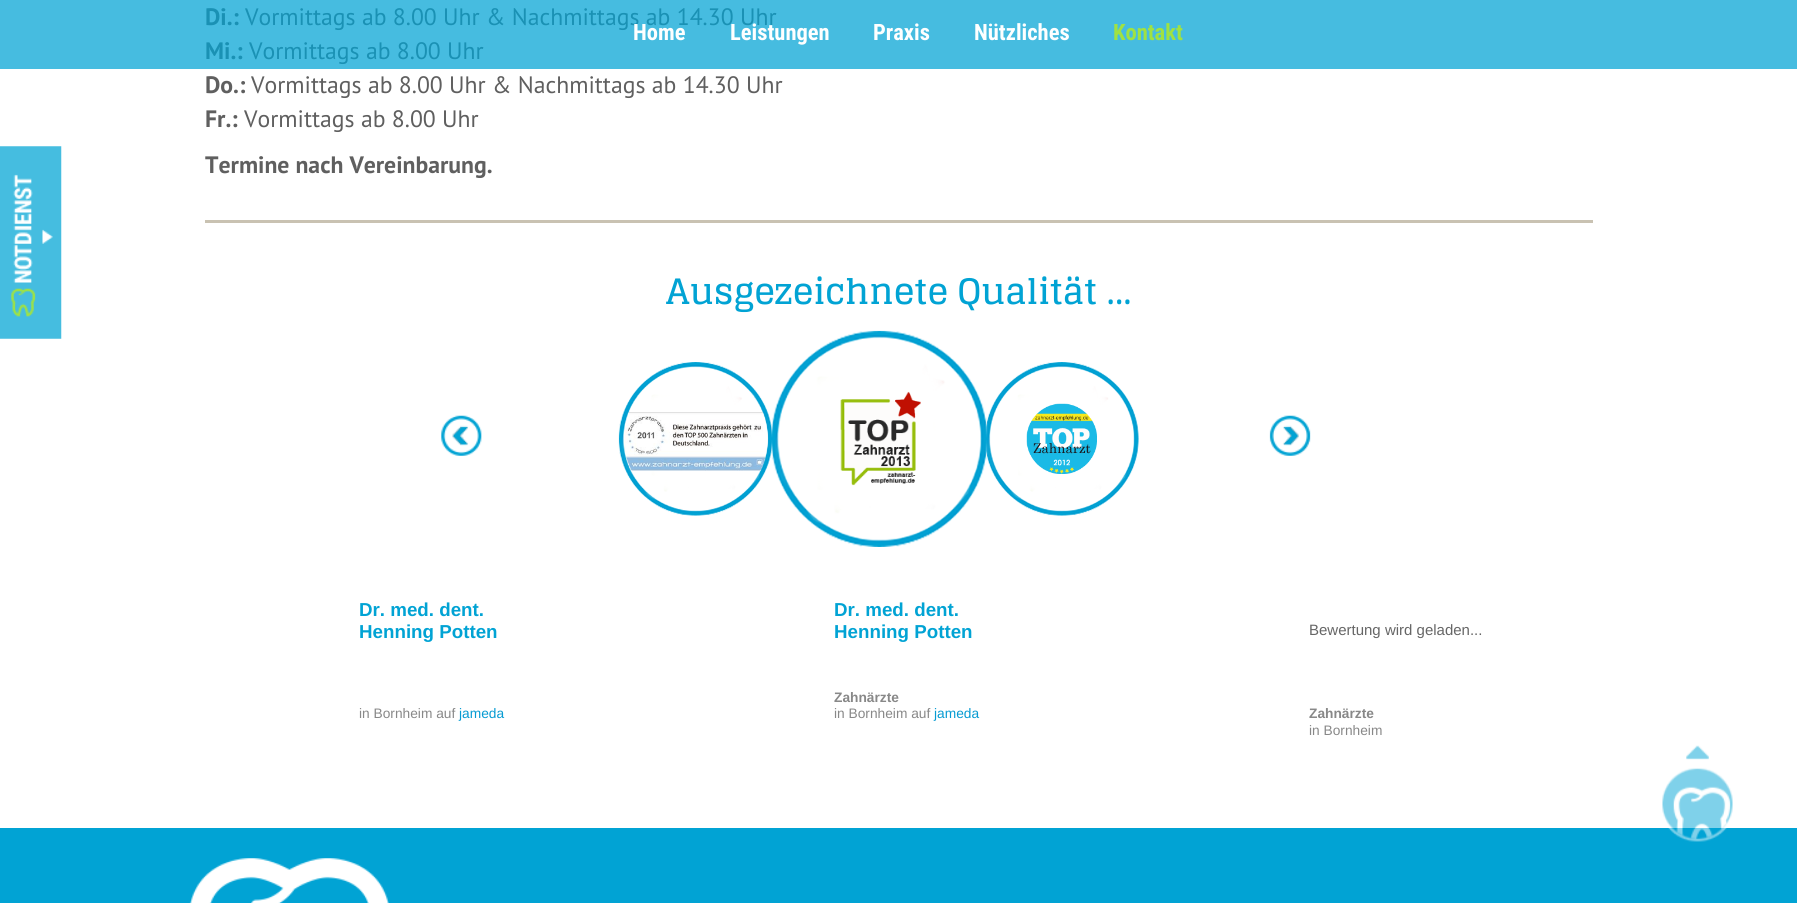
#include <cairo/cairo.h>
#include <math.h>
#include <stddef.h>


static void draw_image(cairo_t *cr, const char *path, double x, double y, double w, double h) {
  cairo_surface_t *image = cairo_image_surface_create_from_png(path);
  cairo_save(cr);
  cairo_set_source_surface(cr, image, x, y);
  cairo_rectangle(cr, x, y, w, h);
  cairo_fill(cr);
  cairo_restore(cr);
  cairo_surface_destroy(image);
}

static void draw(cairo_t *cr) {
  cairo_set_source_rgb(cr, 1, 1, 1);
  cairo_paint(cr);
  cairo_set_source_rgb(cr, 70 / 255.0, 188 / 255.0, 224 / 255.0);
  cairo_rectangle(cr, 0, 0, 1797, 69);
  cairo_fill(cr);
  cairo_set_source_rgb(cr, 201 / 255.0, 194 / 255.0, 178 / 255.0);
  cairo_rectangle(cr, 205, 220, 1388, 3);
  cairo_fill(cr);
  draw_image(cr, "images/1.png", 618, 362, 155, 154);
  draw_image(cr, "images/3.png", 985, 362, 154, 154);
  draw_image(cr, "images/2.png", 771, 330, 217, 217);
  draw_image(cr, "images/4.png", 441, 415, 41, 41);
  draw_image(cr, "images/5.png", 1269, 415, 42, 41);
  draw_image(cr, "images/6.png", 0, 146, 62, 193);
  cairo_set_source_rgb(cr, 1 / 255.0, 163 / 255.0, 212 / 255.0);
  cairo_rectangle(cr, 0, 828, 1797, 75);
  cairo_fill(cr);
  draw_image(cr, "images/7.png", 1662, 745, 71, 97);
  draw_image(cr, "images/8.png", 189, 858, 200, 45);
  cairo_select_font_face(cr, "PT Sans", CAIRO_FONT_SLANT_NORMAL, CAIRO_FONT_WEIGHT_BOLD);
  cairo_set_font_size(cr, 23.75);
  cairo_set_source_rgb(cr, 26 / 255.0, 145 / 255.0, 180 / 255.0);
  cairo_move_to(cr, 205, 25);
  cairo_show_text(cr, "Di.:");
  cairo_select_font_face(cr, "PT Sans", CAIRO_FONT_SLANT_NORMAL, CAIRO_FONT_WEIGHT_NORMAL);
  cairo_move_to(cr, 245, 25);
  cairo_show_text(cr, "Vormittags ab 8.00 Uhr & Nachmittags ab 14.30 Uhr");
  cairo_select_font_face(cr, "PT Sans", CAIRO_FONT_SLANT_NORMAL, CAIRO_FONT_WEIGHT_BOLD);
  cairo_move_to(cr, 205, 59);
  cairo_show_text(cr, "Mi.:");
  cairo_select_font_face(cr, "PT Sans", CAIRO_FONT_SLANT_NORMAL, CAIRO_FONT_WEIGHT_NORMAL);
  cairo_move_to(cr, 249, 59);
  cairo_show_text(cr, "Vormittags ab 8.00 Uhr");
  cairo_select_font_face(cr, "PT Sans", CAIRO_FONT_SLANT_NORMAL, CAIRO_FONT_WEIGHT_BOLD);
  cairo_set_source_rgb(cr, 95 / 255.0, 95 / 255.0, 95 / 255.0);
  cairo_move_to(cr, 205, 93);
  cairo_show_text(cr, "Do.:");
  cairo_select_font_face(cr, "PT Sans", CAIRO_FONT_SLANT_NORMAL, CAIRO_FONT_WEIGHT_NORMAL);
  cairo_move_to(cr, 251, 93);
  cairo_show_text(cr, "Vormittags ab 8.00 Uhr & Nachmittags ab 14.30 Uhr");
  cairo_select_font_face(cr, "PT Sans", CAIRO_FONT_SLANT_NORMAL, CAIRO_FONT_WEIGHT_BOLD);
  cairo_move_to(cr, 205, 127);
  cairo_show_text(cr, "Fr.:");
  cairo_select_font_face(cr, "PT Sans", CAIRO_FONT_SLANT_NORMAL, CAIRO_FONT_WEIGHT_NORMAL);
  cairo_move_to(cr, 244, 127);
  cairo_show_text(cr, "Vormittags ab 8.00 Uhr");
  cairo_select_font_face(cr, "PT Sans", CAIRO_FONT_SLANT_NORMAL, CAIRO_FONT_WEIGHT_BOLD);
  cairo_move_to(cr, 205, 173);
  cairo_show_text(cr, "Termine nach Vereinbarung.");
  cairo_select_font_face(cr, "Glegoo", CAIRO_FONT_SLANT_NORMAL, CAIRO_FONT_WEIGHT_BOLD);
  cairo_set_font_size(cr, 35);
  cairo_set_source_rgb(cr, 1 / 255.0, 163 / 255.0, 212 / 255.0);
  cairo_move_to(cr, 666, 304);
  cairo_show_text(cr, "Ausgezeichnete Qualität ...");
  cairo_select_font_face(cr, "Liberation Sans", CAIRO_FONT_SLANT_NORMAL, CAIRO_FONT_WEIGHT_BOLD);
  cairo_set_font_size(cr, 18.75);
  cairo_move_to(cr, 359, 616);
  cairo_show_text(cr, "Dr. med. dent.");
  cairo_move_to(cr, 359, 638);
  cairo_show_text(cr, "Henning Potten");
  cairo_select_font_face(cr, "Liberation Sans", CAIRO_FONT_SLANT_NORMAL, CAIRO_FONT_WEIGHT_NORMAL);
  cairo_set_font_size(cr, 13.75);
  cairo_set_source_rgb(cr, 136 / 255.0, 136 / 255.0, 136 / 255.0);
  cairo_move_to(cr, 359, 718);
  cairo_show_text(cr, "in Bornheim auf");
  cairo_set_source_rgb(cr, 6 / 255.0, 155 / 255.0, 210 / 255.0);
  cairo_move_to(cr, 459, 718);
  cairo_show_text(cr, "jameda");
  cairo_select_font_face(cr, "Liberation Sans", CAIRO_FONT_SLANT_NORMAL, CAIRO_FONT_WEIGHT_BOLD);
  cairo_set_font_size(cr, 18.75);
  cairo_set_source_rgb(cr, 1 / 255.0, 163 / 255.0, 212 / 255.0);
  cairo_move_to(cr, 834, 616);
  cairo_show_text(cr, "Dr. med. dent.");
  cairo_move_to(cr, 834, 638);
  cairo_show_text(cr, "Henning Potten");
  cairo_set_font_size(cr, 13.75);
  cairo_set_source_rgb(cr, 136 / 255.0, 136 / 255.0, 136 / 255.0);
  cairo_move_to(cr, 834, 702);
  cairo_show_text(cr, "Zahnärzte");
  cairo_select_font_face(cr, "Liberation Sans", CAIRO_FONT_SLANT_NORMAL, CAIRO_FONT_WEIGHT_NORMAL);
  cairo_move_to(cr, 834, 718);
  cairo_show_text(cr, "in Bornheim auf");
  cairo_set_source_rgb(cr, 6 / 255.0, 155 / 255.0, 210 / 255.0);
  cairo_move_to(cr, 934, 718);
  cairo_show_text(cr, "jameda");
  cairo_set_font_size(cr, 15);
  cairo_set_source_rgb(cr, 102 / 255.0, 102 / 255.0, 102 / 255.0);
  cairo_move_to(cr, 1309, 635);
  cairo_show_text(cr, "Bewertung wird geladen...");
  cairo_select_font_face(cr, "Liberation Sans", CAIRO_FONT_SLANT_NORMAL, CAIRO_FONT_WEIGHT_BOLD);
  cairo_set_font_size(cr, 13.75);
  cairo_set_source_rgb(cr, 136 / 255.0, 136 / 255.0, 136 / 255.0);
  cairo_move_to(cr, 1309, 718);
  cairo_show_text(cr, "Zahnärzte");
  cairo_select_font_face(cr, "Liberation Sans", CAIRO_FONT_SLANT_NORMAL, CAIRO_FONT_WEIGHT_NORMAL);
  cairo_move_to(cr, 1309, 735);
  cairo_show_text(cr, "in Bornheim");
  cairo_select_font_face(cr, "Roboto Condensed", CAIRO_FONT_SLANT_NORMAL, CAIRO_FONT_WEIGHT_BOLD);
  cairo_set_font_size(cr, 22.5);
  cairo_set_source_rgb(cr, 254 / 255.0, 1, 1);
  cairo_move_to(cr, 633, 40);
  cairo_show_text(cr, "Home");
  cairo_move_to(cr, 730, 40);
  cairo_show_text(cr, "Leistungen");
  cairo_move_to(cr, 873, 40);
  cairo_show_text(cr, "Praxis");
  cairo_move_to(cr, 974, 40);
  cairo_show_text(cr, "Nützliches");
  cairo_set_source_rgb(cr, 160 / 255.0, 226 / 255.0, 65 / 255.0);
  cairo_move_to(cr, 1113, 40);
  cairo_show_text(cr, "Kontakt");
}

int main(void) {
  cairo_surface_t *surface = cairo_image_surface_create(CAIRO_FORMAT_RGB24, 1797, 903);
  cairo_t *cr = cairo_create(surface);
  cairo_font_options_t *options = cairo_font_options_create();
  cairo_font_options_set_hint_metrics(options, CAIRO_HINT_METRICS_OFF);
  cairo_font_options_set_hint_style(options, CAIRO_HINT_STYLE_NONE);
  cairo_set_font_options(cr, options);
  cairo_set_miter_limit(cr, 4);
  draw(cr);
  cairo_surface_write_to_png(surface, "out.png");
  cairo_font_options_destroy(options);
  cairo_destroy(cr);
  cairo_surface_destroy(surface);
  return 0;
}
